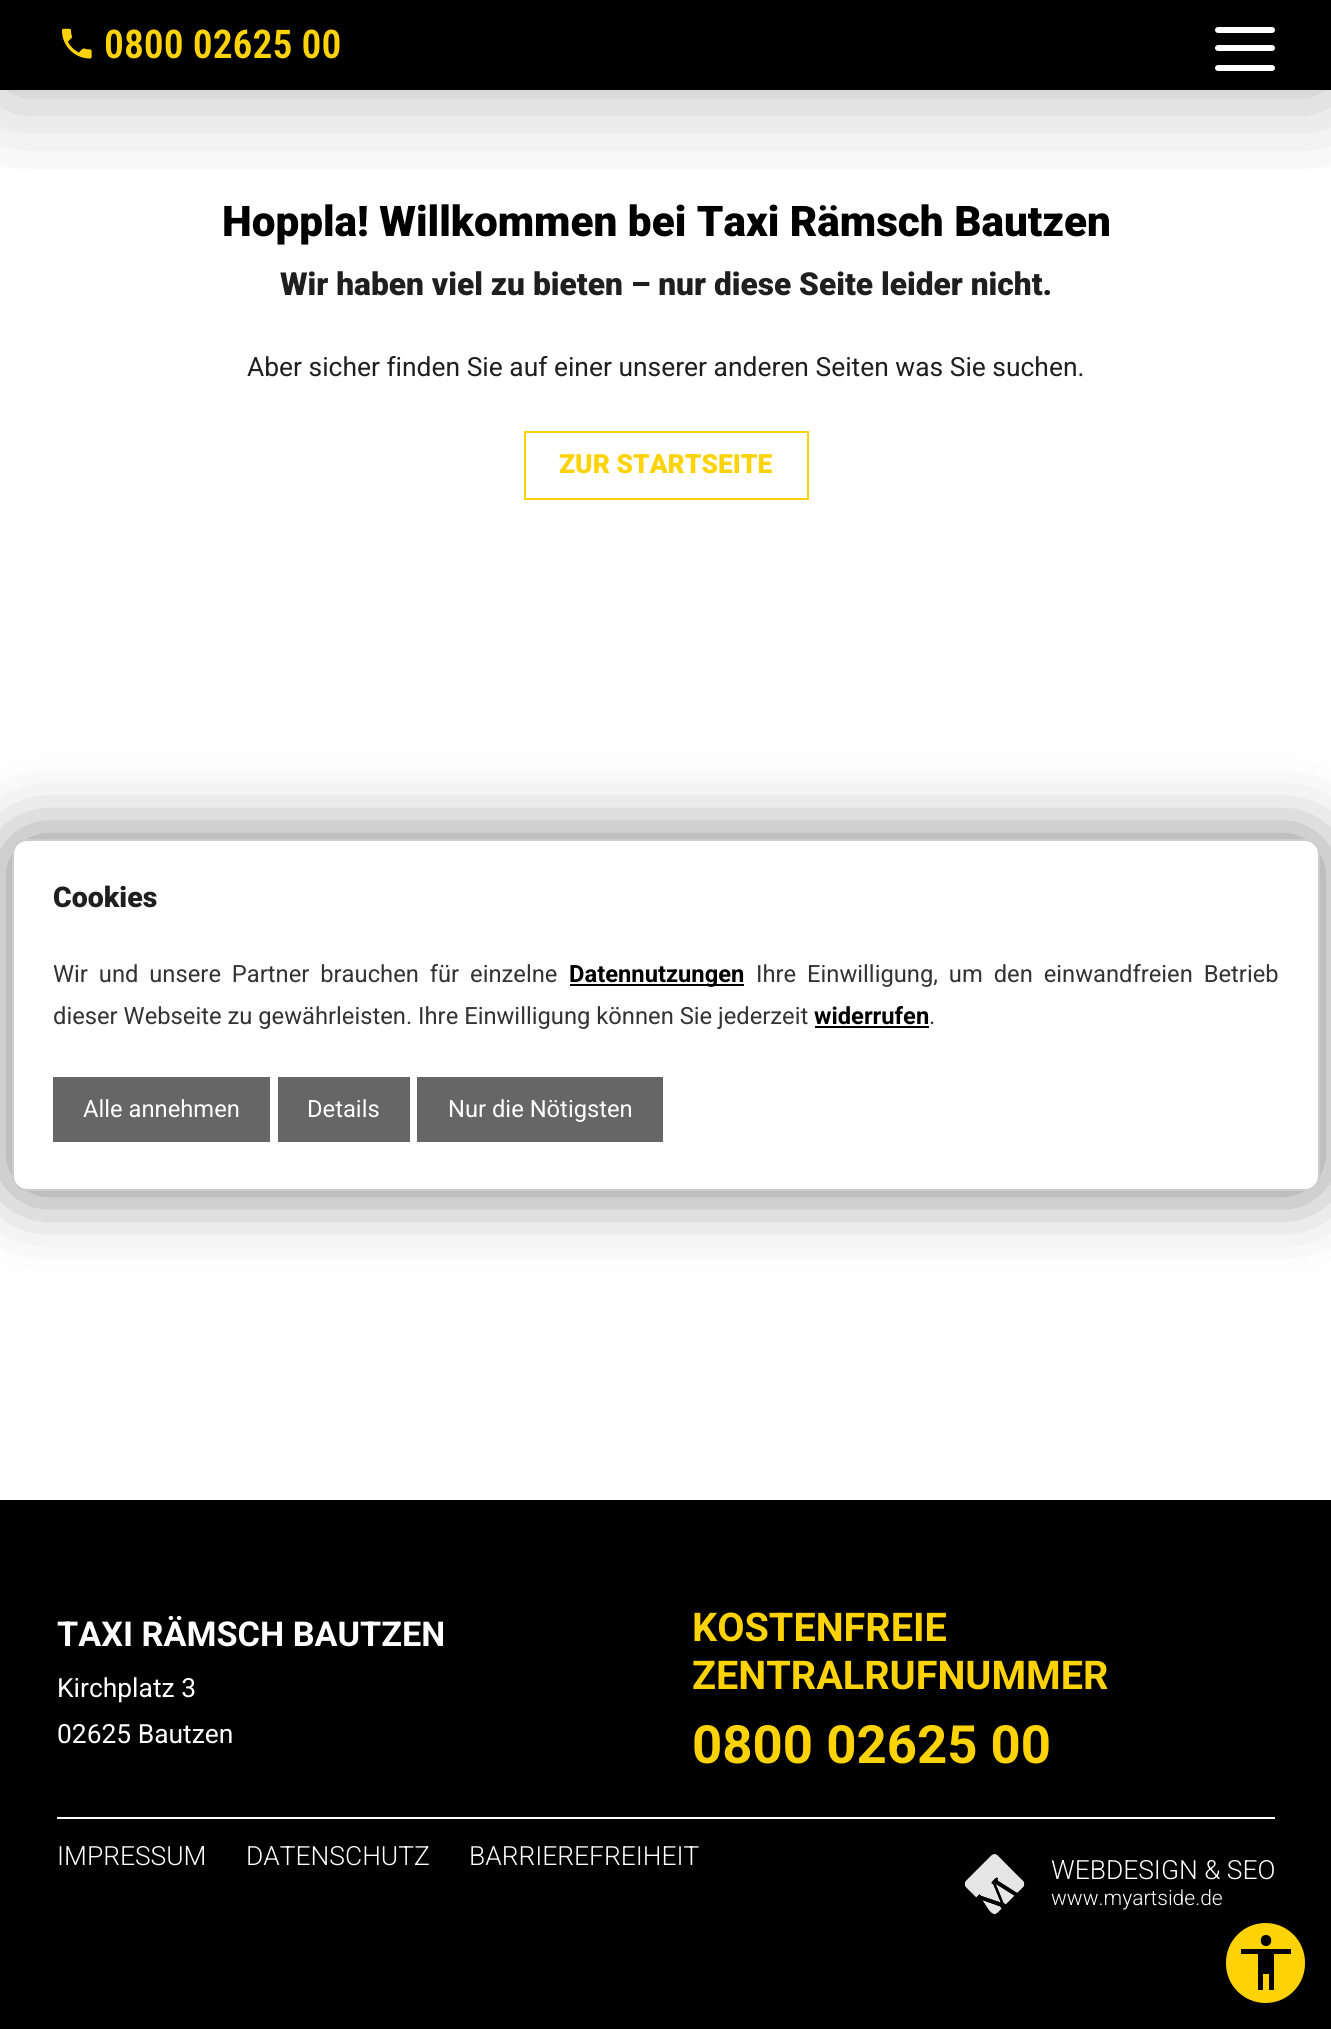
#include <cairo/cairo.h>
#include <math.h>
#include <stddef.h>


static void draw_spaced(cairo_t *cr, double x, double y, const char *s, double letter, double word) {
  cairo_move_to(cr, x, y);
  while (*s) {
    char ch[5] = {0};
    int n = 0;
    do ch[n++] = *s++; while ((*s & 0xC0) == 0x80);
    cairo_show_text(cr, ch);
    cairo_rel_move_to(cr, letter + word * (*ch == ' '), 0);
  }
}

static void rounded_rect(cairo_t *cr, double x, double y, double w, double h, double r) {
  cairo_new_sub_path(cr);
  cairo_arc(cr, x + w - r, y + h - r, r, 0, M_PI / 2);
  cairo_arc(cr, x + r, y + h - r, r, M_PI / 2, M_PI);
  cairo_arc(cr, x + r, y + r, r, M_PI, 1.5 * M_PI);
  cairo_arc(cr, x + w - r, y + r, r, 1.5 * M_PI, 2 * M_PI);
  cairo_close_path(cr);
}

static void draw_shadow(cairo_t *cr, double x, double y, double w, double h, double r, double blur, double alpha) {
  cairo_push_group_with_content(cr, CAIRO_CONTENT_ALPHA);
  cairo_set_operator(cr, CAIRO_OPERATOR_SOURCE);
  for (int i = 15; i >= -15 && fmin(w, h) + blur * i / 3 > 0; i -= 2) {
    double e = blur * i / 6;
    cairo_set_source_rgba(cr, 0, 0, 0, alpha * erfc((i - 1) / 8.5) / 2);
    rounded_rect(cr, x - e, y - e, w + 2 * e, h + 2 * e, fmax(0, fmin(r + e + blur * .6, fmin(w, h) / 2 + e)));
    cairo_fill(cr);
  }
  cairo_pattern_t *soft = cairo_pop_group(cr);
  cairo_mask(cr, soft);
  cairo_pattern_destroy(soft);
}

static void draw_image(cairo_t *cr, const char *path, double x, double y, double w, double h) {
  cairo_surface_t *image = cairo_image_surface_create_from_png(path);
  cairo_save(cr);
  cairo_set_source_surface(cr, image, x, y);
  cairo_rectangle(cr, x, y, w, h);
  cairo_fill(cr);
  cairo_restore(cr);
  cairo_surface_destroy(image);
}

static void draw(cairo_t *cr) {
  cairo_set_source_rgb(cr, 1, 1, 1);
  cairo_paint(cr);
  cairo_set_source_rgb(cr, 0, 0, 0);
  cairo_rectangle(cr, 0, 0, 1331, 90);
  cairo_fill(cr);
  cairo_save(cr);
  cairo_rectangle(cr, 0, 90, 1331, 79);
  cairo_clip(cr);
  cairo_set_source_rgb(cr, 0, 0, 0);
  draw_shadow(cr, 0, 0, 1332, 90, 0, 52.5, 0.3);
  cairo_restore(cr);
  draw_image(cr, "images/1.png", 61, 28, 31, 31);
  cairo_set_source_rgb(cr, 1, 1, 1);
  rounded_rect(cr, 1215, 27, 60, 6, 3);
  cairo_fill(cr);
  rounded_rect(cr, 1215, 45, 60, 6, 3);
  cairo_fill(cr);
  rounded_rect(cr, 1215, 65, 60, 6, 3);
  cairo_fill(cr);
  cairo_rectangle(cr, 525, 432, 283, 67);
  cairo_set_source_rgb(cr, 253 / 255.0, 211 / 255.0, 5 / 255.0);
  cairo_stroke(cr);
  cairo_set_source_rgb(cr, 0, 0, 0);
  draw_shadow(cr, 12, 839, 1308, 352, 15, 37.5, 0.5);
  cairo_set_source_rgb(cr, 1, 1, 1);
  rounded_rect(cr, 13, 840, 1306, 350, 14);
  cairo_fill_preserve(cr);
  cairo_set_source_rgb(cr, 204 / 255.0, 204 / 255.0, 204 / 255.0);
  cairo_stroke(cr);
  cairo_set_source_rgb(cr, 0, 0, 0);
  cairo_rectangle(cr, 570, 984, 174, 2);
  cairo_fill(cr);
  cairo_rectangle(cr, 815, 1026, 114, 2);
  cairo_fill(cr);
  cairo_set_source_rgb(cr, 102 / 255.0, 102 / 255.0, 102 / 255.0);
  cairo_rectangle(cr, 53, 1077, 217, 65);
  cairo_fill(cr);
  cairo_rectangle(cr, 278, 1077, 132, 65);
  cairo_fill(cr);
  cairo_rectangle(cr, 417, 1077, 246, 65);
  cairo_fill(cr);
  cairo_set_source_rgb(cr, 0, 0, 0);
  cairo_rectangle(cr, 0, 1500, 1331, 529);
  cairo_fill(cr);
  cairo_set_source_rgb(cr, 1, 1, 1);
  cairo_rectangle(cr, 57, 1817, 1218, 2);
  cairo_fill(cr);
  draw_image(cr, "images/2.png", 965, 1854, 60, 60);
  cairo_set_source_rgb(cr, 253 / 255.0, 211 / 255.0, 5 / 255.0);
  rounded_rect(cr, 1226, 1923, 79, 80, 39.5);
  cairo_fill(cr);
  cairo_set_source_rgb(cr, 0, 0, 0);
  cairo_new_path(cr);
  cairo_move_to(cr, 1291, 1954);
  cairo_line_to(cr, 1274, 1954);
  cairo_line_to(cr, 1274, 1990);
  cairo_line_to(cr, 1269, 1990);
  cairo_line_to(cr, 1269, 1974);
  cairo_line_to(cr, 1263, 1974);
  cairo_line_to(cr, 1263, 1990);
  cairo_line_to(cr, 1258, 1990);
  cairo_line_to(cr, 1258, 1954);
  cairo_line_to(cr, 1241, 1954);
  cairo_line_to(cr, 1241, 1949);
  cairo_line_to(cr, 1291, 1949);
  cairo_close_path(cr);
  cairo_move_to(cr, 1266, 1935);
  cairo_curve_to(cr, 1273, 1935, 1273, 1946, 1266, 1946);
  cairo_curve_to(cr, 1259, 1946, 1259, 1935, 1266, 1935);
  cairo_close_path(cr);
  cairo_fill(cr);
  cairo_select_font_face(cr, "Roboto Condensed SemiBold", CAIRO_FONT_SLANT_NORMAL, CAIRO_FONT_WEIGHT_NORMAL);
  cairo_set_font_size(cr, 39.6);
  cairo_set_source_rgb(cr, 253 / 255.0, 211 / 255.0, 5 / 255.0);
  cairo_move_to(cr, 104, 58);
  cairo_show_text(cr, "0800 02625 00");
  cairo_select_font_face(cr, "Roboto Black", CAIRO_FONT_SLANT_NORMAL, CAIRO_FONT_WEIGHT_NORMAL);
  cairo_set_font_size(cr, 42.25);
  cairo_set_source_rgb(cr, 0, 0, 0);
  cairo_move_to(cr, 222, 236);
  cairo_show_text(cr, "Hoppla! Willkommen bei Taxi Rämsch Bautzen");
  cairo_set_font_size(cr, 31.7);
  cairo_set_source_rgb(cr, 31 / 255.0, 31 / 255.0, 31 / 255.0);
  cairo_move_to(cr, 280, 295);
  cairo_show_text(cr, "Wir haben viel zu bieten – nur diese Seite leider nicht.");
  cairo_select_font_face(cr, "Roboto", CAIRO_FONT_SLANT_NORMAL, CAIRO_FONT_WEIGHT_NORMAL);
  cairo_set_font_size(cr, 26.4);
  cairo_move_to(cr, 247, 376);
  cairo_show_text(cr, "Aber sicher finden Sie auf einer unserer anderen Seiten was Sie suchen.");
  cairo_select_font_face(cr, "Roboto Black", CAIRO_FONT_SLANT_NORMAL, CAIRO_FONT_WEIGHT_NORMAL);
  cairo_set_source_rgb(cr, 253 / 255.0, 211 / 255.0, 5 / 255.0);
  cairo_move_to(cr, 559, 473);
  cairo_show_text(cr, "ZUR STARTSEITE");
  cairo_set_font_size(cr, 28.5);
  cairo_set_source_rgb(cr, 31 / 255.0, 31 / 255.0, 31 / 255.0);
  cairo_move_to(cr, 53, 907);
  cairo_show_text(cr, "Cookies");
  cairo_select_font_face(cr, "Roboto", CAIRO_FONT_SLANT_NORMAL, CAIRO_FONT_WEIGHT_NORMAL);
  cairo_set_font_size(cr, 23.75);
  cairo_set_source_rgb(cr, 51 / 255.0, 51 / 255.0, 51 / 255.0);
  draw_spaced(cr, 53, 982, "Wir und unsere Partner brauchen für einzelne", 0, 5);
  cairo_select_font_face(cr, "Roboto", CAIRO_FONT_SLANT_NORMAL, CAIRO_FONT_WEIGHT_BOLD);
  cairo_set_source_rgb(cr, 0, 0, 0);
  cairo_move_to(cr, 569, 982);
  cairo_show_text(cr, "Datennutzungen");
  cairo_select_font_face(cr, "Roboto", CAIRO_FONT_SLANT_NORMAL, CAIRO_FONT_WEIGHT_NORMAL);
  cairo_set_source_rgb(cr, 51 / 255.0, 51 / 255.0, 51 / 255.0);
  draw_spaced(cr, 756, 982, "Ihre Einwilligung, um den einwandfreien Betrieb", 0, 5);
  cairo_move_to(cr, 53, 1024);
  cairo_show_text(cr, "dieser Webseite zu gewährleisten. Ihre Einwilligung können Sie jederzeit");
  cairo_select_font_face(cr, "Roboto", CAIRO_FONT_SLANT_NORMAL, CAIRO_FONT_WEIGHT_BOLD);
  cairo_set_source_rgb(cr, 0, 0, 0);
  cairo_move_to(cr, 814, 1024);
  cairo_show_text(cr, "widerrufen");
  cairo_select_font_face(cr, "Roboto", CAIRO_FONT_SLANT_NORMAL, CAIRO_FONT_WEIGHT_NORMAL);
  cairo_set_source_rgb(cr, 51 / 255.0, 51 / 255.0, 51 / 255.0);
  cairo_move_to(cr, 929, 1024);
  cairo_show_text(cr, ".");
  cairo_set_source_rgb(cr, 1, 1, 1);
  cairo_move_to(cr, 83, 1117);
  cairo_show_text(cr, "Alle annehmen");
  cairo_move_to(cr, 307, 1117);
  cairo_show_text(cr, "Details");
  cairo_move_to(cr, 448, 1117);
  cairo_show_text(cr, "Nur die Nötigsten");
  cairo_select_font_face(cr, "Roboto", CAIRO_FONT_SLANT_NORMAL, CAIRO_FONT_WEIGHT_BOLD);
  cairo_set_font_size(cr, 34.25);
  cairo_move_to(cr, 57, 1646);
  cairo_show_text(cr, "TAXI RÄMSCH BAUTZEN");
  cairo_select_font_face(cr, "Roboto", CAIRO_FONT_SLANT_NORMAL, CAIRO_FONT_WEIGHT_NORMAL);
  cairo_set_font_size(cr, 26.4);
  cairo_move_to(cr, 57, 1697);
  cairo_show_text(cr, "Kirchplatz 3");
  cairo_move_to(cr, 57, 1743);
  cairo_show_text(cr, "02625 Bautzen");
  cairo_select_font_face(cr, "Roboto", CAIRO_FONT_SLANT_NORMAL, CAIRO_FONT_WEIGHT_BOLD);
  cairo_set_font_size(cr, 39.6);
  cairo_set_source_rgb(cr, 253 / 255.0, 211 / 255.0, 5 / 255.0);
  cairo_move_to(cr, 692, 1641);
  cairo_show_text(cr, "KOSTENFREIE");
  cairo_move_to(cr, 692, 1689);
  cairo_show_text(cr, "ZENTRALRUFNUMMER");
  cairo_set_font_size(cr, 52.75);
  cairo_move_to(cr, 692, 1763);
  cairo_show_text(cr, "0800 02625 00");
  cairo_select_font_face(cr, "Roboto Light", CAIRO_FONT_SLANT_NORMAL, CAIRO_FONT_WEIGHT_NORMAL);
  cairo_set_font_size(cr, 26.4);
  cairo_set_source_rgb(cr, 1, 1, 1);
  cairo_move_to(cr, 57, 1865);
  cairo_show_text(cr, "IMPRESSUM");
  cairo_move_to(cr, 246, 1865);
  cairo_show_text(cr, "DATENSCHUTZ");
  cairo_move_to(cr, 469, 1865);
  cairo_show_text(cr, "BARRIEREFREIHEIT");
  cairo_move_to(cr, 1051, 1879);
  cairo_show_text(cr, "WEBDESIGN & SEO");
  cairo_set_font_size(cr, 21);
  cairo_move_to(cr, 1051, 1905);
  cairo_show_text(cr, "www.myartside.de");
}

int main(void) {
  cairo_surface_t *surface = cairo_image_surface_create(CAIRO_FORMAT_RGB24, 1331, 2029);
  cairo_t *cr = cairo_create(surface);
  cairo_font_options_t *options = cairo_font_options_create();
  cairo_font_options_set_hint_metrics(options, CAIRO_HINT_METRICS_OFF);
  cairo_font_options_set_hint_style(options, CAIRO_HINT_STYLE_NONE);
  cairo_set_font_options(cr, options);
  cairo_set_miter_limit(cr, 4);
  draw(cr);
  cairo_surface_write_to_png(surface, "out.png");
  cairo_font_options_destroy(options);
  cairo_destroy(cr);
  cairo_surface_destroy(surface);
  return 0;
}
